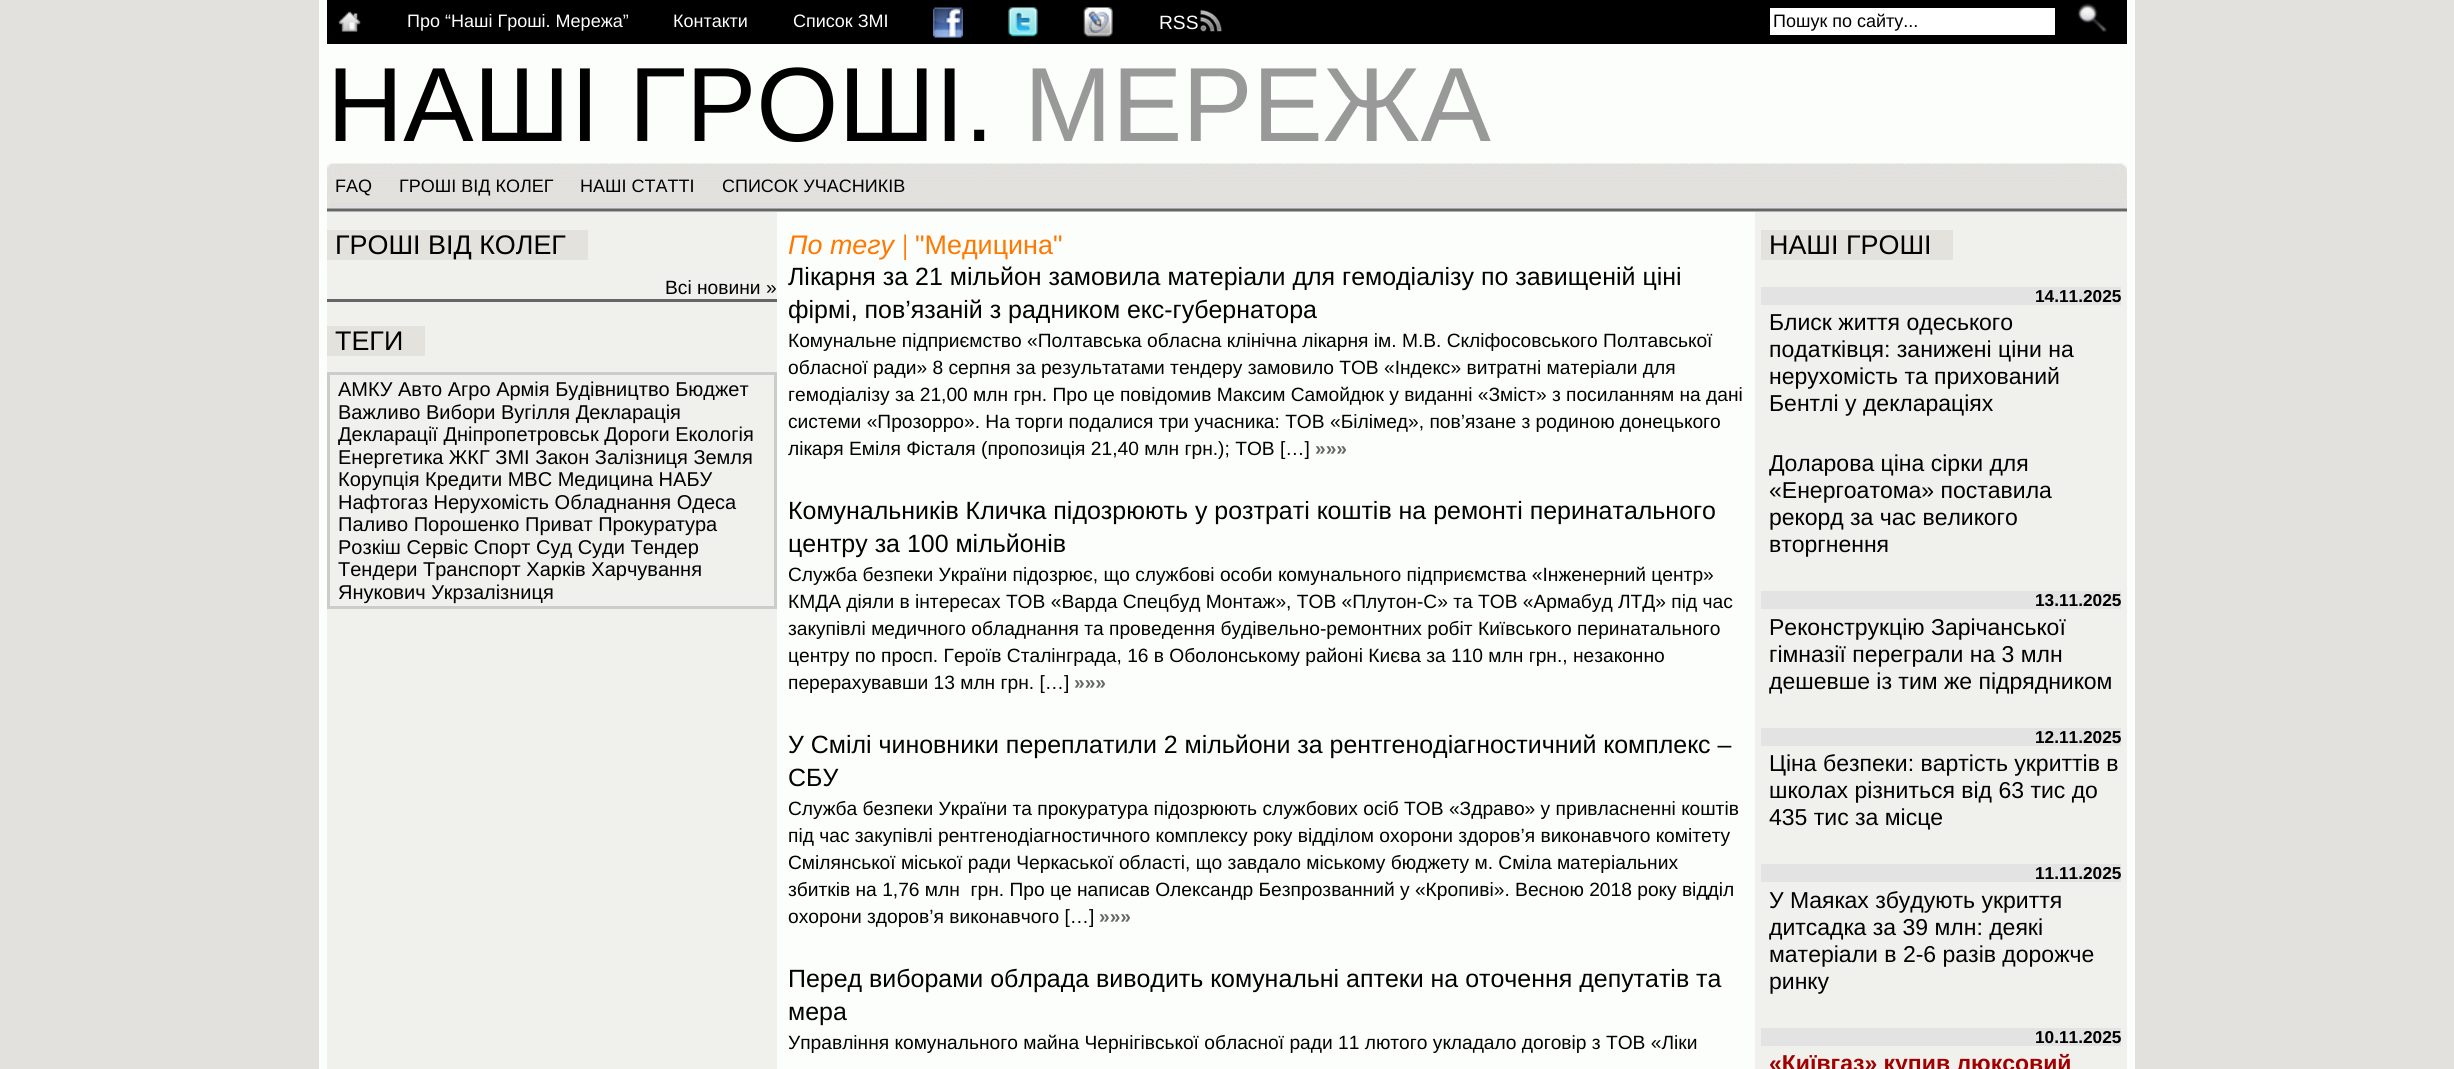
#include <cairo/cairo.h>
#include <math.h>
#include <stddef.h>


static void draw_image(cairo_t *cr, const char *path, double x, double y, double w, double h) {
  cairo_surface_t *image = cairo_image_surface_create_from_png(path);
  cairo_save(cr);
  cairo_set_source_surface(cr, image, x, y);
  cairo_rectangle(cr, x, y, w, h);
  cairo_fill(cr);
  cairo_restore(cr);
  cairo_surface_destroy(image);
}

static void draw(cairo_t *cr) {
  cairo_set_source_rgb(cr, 226 / 255.0, 225 / 255.0, 221 / 255.0);
  cairo_paint(cr);
  cairo_set_source_rgb(cr, 252 / 255.0, 254 / 255.0, 252 / 255.0);
  cairo_rectangle(cr, 319, 0, 1816, 1069);
  cairo_fill(cr);
  cairo_set_source_rgb(cr, 0, 0, 0);
  cairo_rectangle(cr, 327, 0, 1800, 44);
  cairo_fill(cr);
  draw_image(cr, "images/1.png", 338, 11, 23, 21);
  draw_image(cr, "images/2.png", 933, 7, 30, 31);
  draw_image(cr, "images/3.png", 1008, 7, 30, 30);
  draw_image(cr, "images/4.png", 1083, 7, 30, 31);
  draw_image(cr, "images/5.png", 1200, 9, 22, 23);
  cairo_set_source_rgb(cr, 1, 1, 1);
  cairo_rectangle(cr, 1770, 8, 285, 27);
  cairo_fill(cr);
  draw_image(cr, "images/6.png", 2077, 3, 30, 29);
  draw_image(cr, "images/7.png", 327, 163, 1800, 49);
  cairo_set_source_rgb(cr, 240 / 255.0, 240 / 255.0, 236 / 255.0);
  cairo_rectangle(cr, 327, 212, 450, 857);
  cairo_fill(cr);
  cairo_set_source_rgb(cr, 228 / 255.0, 226 / 255.0, 220 / 255.0);
  cairo_rectangle(cr, 327, 230, 261, 30);
  cairo_fill(cr);
  cairo_set_source_rgb(cr, 102 / 255.0, 102 / 255.0, 102 / 255.0);
  cairo_rectangle(cr, 327, 299, 450, 3);
  cairo_fill(cr);
  cairo_set_source_rgb(cr, 228 / 255.0, 226 / 255.0, 220 / 255.0);
  cairo_rectangle(cr, 327, 326, 98, 30);
  cairo_fill(cr);
  cairo_rectangle(cr, 328.5, 373.5, 447, 234);
  cairo_set_source_rgb(cr, 204 / 255.0, 204 / 255.0, 204 / 255.0);
  cairo_set_line_width(cr, 3);
  cairo_stroke(cr);
  cairo_set_source_rgb(cr, 240 / 255.0, 240 / 255.0, 236 / 255.0);
  cairo_rectangle(cr, 1755, 212, 372, 857);
  cairo_fill(cr);
  cairo_set_source_rgb(cr, 228 / 255.0, 226 / 255.0, 220 / 255.0);
  cairo_rectangle(cr, 1761, 230, 192, 30);
  cairo_fill(cr);
  cairo_set_source_rgb(cr, 227 / 255.0, 227 / 255.0, 227 / 255.0);
  cairo_rectangle(cr, 1761, 287, 360, 18);
  cairo_fill(cr);
  cairo_rectangle(cr, 1761, 591, 360, 18);
  cairo_fill(cr);
  cairo_rectangle(cr, 1761, 728, 360, 18);
  cairo_fill(cr);
  cairo_rectangle(cr, 1761, 864, 360, 18);
  cairo_fill(cr);
  cairo_rectangle(cr, 1761, 1028, 360, 18);
  cairo_fill(cr);
  cairo_select_font_face(cr, "Liberation Sans", CAIRO_FONT_SLANT_NORMAL, CAIRO_FONT_WEIGHT_NORMAL);
  cairo_set_font_size(cr, 18);
  cairo_set_source_rgb(cr, 1, 1, 1);
  cairo_move_to(cr, 407, 27);
  cairo_show_text(cr, "Про “Наші Гроші. Мережа”");
  cairo_move_to(cr, 673, 27);
  cairo_show_text(cr, "Контакти");
  cairo_move_to(cr, 793, 27);
  cairo_show_text(cr, "Список ЗМІ");
  cairo_set_font_size(cr, 19.2);
  cairo_move_to(cr, 1159, 29);
  cairo_show_text(cr, "RSS");
  cairo_set_font_size(cr, 18);
  cairo_set_source_rgb(cr, 0, 0, 0);
  cairo_move_to(cr, 1773, 27);
  cairo_show_text(cr, "Пошук по сайту...");
  cairo_set_font_size(cr, 105.5);
  cairo_move_to(cr, 327, 141);
  cairo_show_text(cr, "НАШІ ГРОШІ.");
  cairo_set_source_rgb(cr, 153 / 255.0, 153 / 255.0, 153 / 255.0);
  cairo_move_to(cr, 1024, 141);
  cairo_show_text(cr, "МЕРЕЖА");
  cairo_set_font_size(cr, 18);
  cairo_set_source_rgb(cr, 0, 0, 0);
  cairo_move_to(cr, 335, 192);
  cairo_show_text(cr, "FAQ");
  cairo_move_to(cr, 399, 192);
  cairo_show_text(cr, "ГРОШІ ВІД КОЛЕГ");
  cairo_move_to(cr, 580, 192);
  cairo_show_text(cr, "НАШІ СТАТТІ");
  cairo_move_to(cr, 722, 192);
  cairo_show_text(cr, "СПИСОК УЧАСНИКІВ");
  cairo_set_font_size(cr, 26.9);
  cairo_move_to(cr, 335, 254);
  cairo_show_text(cr, "ГРОШІ ВІД КОЛЕГ");
  cairo_set_font_size(cr, 19.2);
  cairo_move_to(cr, 665, 294);
  cairo_show_text(cr, "Всі новини »");
  cairo_set_font_size(cr, 26.9);
  cairo_move_to(cr, 335, 350);
  cairo_show_text(cr, "ТЕГИ");
  cairo_set_font_size(cr, 20);
  cairo_move_to(cr, 338, 396);
  cairo_show_text(cr, "АМКУ Авто Агро Армія Будівництво Бюджет");
  cairo_move_to(cr, 338, 419);
  cairo_show_text(cr, "Важливо Вибори Вугілля Декларація");
  cairo_move_to(cr, 338, 441);
  cairo_show_text(cr, "Декларації Дніпропетровськ Дороги Екологія");
  cairo_move_to(cr, 338, 464);
  cairo_show_text(cr, "Енергетика ЖКГ ЗМІ Закон Залізниця Земля");
  cairo_move_to(cr, 338, 486);
  cairo_show_text(cr, "Корупція Кредити МВС Медицина НАБУ");
  cairo_move_to(cr, 338, 509);
  cairo_show_text(cr, "Нафтогаз Нерухомість Обладнання Одеса");
  cairo_move_to(cr, 338, 531);
  cairo_show_text(cr, "Паливо Порошенко Приват Прокуратура");
  cairo_move_to(cr, 338, 554);
  cairo_show_text(cr, "Розкіш Сервіс Спорт Суд Суди Тендер");
  cairo_move_to(cr, 338, 576);
  cairo_show_text(cr, "Тендери Транспорт Харків Харчування");
  cairo_move_to(cr, 338, 599);
  cairo_show_text(cr, "Янукович Укрзалізниця");
  cairo_select_font_face(cr, "Liberation Sans", CAIRO_FONT_SLANT_ITALIC, CAIRO_FONT_WEIGHT_NORMAL);
  cairo_set_font_size(cr, 26.9);
  cairo_set_source_rgb(cr, 1, 120 / 255.0, 0);
  cairo_move_to(cr, 788, 254);
  cairo_show_text(cr, "По тегу |");
  cairo_select_font_face(cr, "Liberation Sans", CAIRO_FONT_SLANT_NORMAL, CAIRO_FONT_WEIGHT_NORMAL);
  cairo_move_to(cr, 915, 254);
  cairo_show_text(cr, "\"Медицина\"");
  cairo_set_font_size(cr, 24.95);
  cairo_set_source_rgb(cr, 0, 0, 0);
  cairo_move_to(cr, 788, 285);
  cairo_show_text(cr, "Лікарня за 21 мільйон замовила матеріали для гемодіалізу по завищеній ціні");
  cairo_move_to(cr, 788, 318);
  cairo_show_text(cr, "фірмі, пов’язаній з радником екс-губернатора");
  cairo_set_font_size(cr, 19.2);
  cairo_move_to(cr, 788, 347);
  cairo_show_text(cr, "Комунальне підприємство «Полтавська обласна клінічна лікарня ім. М.В. Скліфосовського Полтавської");
  cairo_move_to(cr, 788, 374);
  cairo_show_text(cr, "обласної ради» 8 серпня за результатами тендеру замовило ТОВ «Індекс» витратні матеріали для");
  cairo_move_to(cr, 788, 401);
  cairo_show_text(cr, "гемодіалізу за 21,00 млн грн. Про це повідомив Максим Самойдюк у виданні «Зміст» з посиланням на дані");
  cairo_move_to(cr, 788, 428);
  cairo_show_text(cr, "системи «Прозорро». На торги подалися три учасника: ТОВ «Білімед», пов’язане з родиною донецького");
  cairo_move_to(cr, 788, 455);
  cairo_show_text(cr, "лікаря Еміля Фісталя (пропозиція 21,40 млн грн.); ТОВ […]");
  cairo_select_font_face(cr, "Liberation Sans", CAIRO_FONT_SLANT_NORMAL, CAIRO_FONT_WEIGHT_BOLD);
  cairo_set_source_rgb(cr, 102 / 255.0, 102 / 255.0, 102 / 255.0);
  cairo_move_to(cr, 1315, 455);
  cairo_show_text(cr, "»»»");
  cairo_select_font_face(cr, "Liberation Sans", CAIRO_FONT_SLANT_NORMAL, CAIRO_FONT_WEIGHT_NORMAL);
  cairo_set_font_size(cr, 24.95);
  cairo_set_source_rgb(cr, 0, 0, 0);
  cairo_move_to(cr, 788, 519);
  cairo_show_text(cr, "Комунальників Кличка підозрюють у розтраті коштів на ремонті перинатального");
  cairo_move_to(cr, 788, 552);
  cairo_show_text(cr, "центру за 100 мільйонів");
  cairo_set_font_size(cr, 19.2);
  cairo_move_to(cr, 788, 581);
  cairo_show_text(cr, "Служба безпеки України підозрює, що службові особи комунального підприємства «Інженерний центр»");
  cairo_move_to(cr, 788, 608);
  cairo_show_text(cr, "КМДА діяли в інтересах ТОВ «Варда Спецбуд Монтаж», ТОВ «Плутон-С» та ТОВ «Армабуд ЛТД» під час");
  cairo_move_to(cr, 788, 635);
  cairo_show_text(cr, "закупівлі медичного обладнання та проведення будівельно-ремонтних робіт Київського перинатального");
  cairo_move_to(cr, 788, 662);
  cairo_show_text(cr, "центру по просп. Героїв Сталінграда, 16 в Оболонському районі Києва за 110 млн грн., незаконно");
  cairo_move_to(cr, 788, 689);
  cairo_show_text(cr, "перерахувавши 13 млн грн. […]");
  cairo_select_font_face(cr, "Liberation Sans", CAIRO_FONT_SLANT_NORMAL, CAIRO_FONT_WEIGHT_BOLD);
  cairo_set_source_rgb(cr, 102 / 255.0, 102 / 255.0, 102 / 255.0);
  cairo_move_to(cr, 1074, 689);
  cairo_show_text(cr, "»»»");
  cairo_select_font_face(cr, "Liberation Sans", CAIRO_FONT_SLANT_NORMAL, CAIRO_FONT_WEIGHT_NORMAL);
  cairo_set_font_size(cr, 24.95);
  cairo_set_source_rgb(cr, 0, 0, 0);
  cairo_move_to(cr, 788, 753);
  cairo_show_text(cr, "У Смілі чиновники переплатили 2 мільйони за рентгенодіагностичний комплекс –");
  cairo_move_to(cr, 788, 786);
  cairo_show_text(cr, "СБУ");
  cairo_set_font_size(cr, 19.2);
  cairo_move_to(cr, 788, 815);
  cairo_show_text(cr, "Служба безпеки України та прокуратура підозрюють службових осіб ТОВ «Здраво» у привласненні коштів");
  cairo_move_to(cr, 788, 842);
  cairo_show_text(cr, "під час закупівлі рентгенодіагностичного комплексу року відділом охорони здоров’я виконавчого комітету");
  cairo_move_to(cr, 788, 869);
  cairo_show_text(cr, "Смілянської міської ради Черкаської області, що завдало міському бюджету м. Сміла матеріальних");
  cairo_move_to(cr, 788, 896);
  cairo_show_text(cr, "збитків на 1,76 млн  грн. Про це написав Олександр Безпрозванний у «Кропиві». Весною 2018 року відділ");
  cairo_move_to(cr, 788, 923);
  cairo_show_text(cr, "охорони здоров’я виконавчого […]");
  cairo_select_font_face(cr, "Liberation Sans", CAIRO_FONT_SLANT_NORMAL, CAIRO_FONT_WEIGHT_BOLD);
  cairo_set_source_rgb(cr, 102 / 255.0, 102 / 255.0, 102 / 255.0);
  cairo_move_to(cr, 1099, 923);
  cairo_show_text(cr, "»»»");
  cairo_select_font_face(cr, "Liberation Sans", CAIRO_FONT_SLANT_NORMAL, CAIRO_FONT_WEIGHT_NORMAL);
  cairo_set_font_size(cr, 24.95);
  cairo_set_source_rgb(cr, 0, 0, 0);
  cairo_move_to(cr, 788, 987);
  cairo_show_text(cr, "Перед виборами облрада виводить комунальні аптеки на оточення депутатів та");
  cairo_move_to(cr, 788, 1020);
  cairo_show_text(cr, "мера");
  cairo_set_font_size(cr, 19.2);
  cairo_move_to(cr, 788, 1049);
  cairo_show_text(cr, "Управління комунального майна Чернігівської обласної ради 11 лютого укладало договір з ТОВ «Ліки");
  cairo_set_font_size(cr, 26.9);
  cairo_move_to(cr, 1769, 254);
  cairo_show_text(cr, "НАШІ ГРОШІ");
  cairo_select_font_face(cr, "Liberation Sans", CAIRO_FONT_SLANT_NORMAL, CAIRO_FONT_WEIGHT_BOLD);
  cairo_set_font_size(cr, 17.25);
  cairo_move_to(cr, 2035, 302);
  cairo_show_text(cr, "14.11.2025");
  cairo_select_font_face(cr, "Liberation Sans", CAIRO_FONT_SLANT_NORMAL, CAIRO_FONT_WEIGHT_NORMAL);
  cairo_set_font_size(cr, 23);
  cairo_move_to(cr, 1769, 330);
  cairo_show_text(cr, "Блиск життя одеського");
  cairo_move_to(cr, 1769, 357);
  cairo_show_text(cr, "податківця: занижені ціни на");
  cairo_move_to(cr, 1769, 384);
  cairo_show_text(cr, "нерухомість та прихований");
  cairo_move_to(cr, 1769, 411);
  cairo_show_text(cr, "Бентлі у деклараціях");
  cairo_move_to(cr, 1769, 471);
  cairo_show_text(cr, "Доларова ціна сірки для");
  cairo_move_to(cr, 1769, 498);
  cairo_show_text(cr, "«Енергоатома» поставила");
  cairo_move_to(cr, 1769, 525);
  cairo_show_text(cr, "рекорд за час великого");
  cairo_move_to(cr, 1769, 552);
  cairo_show_text(cr, "вторгнення");
  cairo_select_font_face(cr, "Liberation Sans", CAIRO_FONT_SLANT_NORMAL, CAIRO_FONT_WEIGHT_BOLD);
  cairo_set_font_size(cr, 17.25);
  cairo_move_to(cr, 2035, 606);
  cairo_show_text(cr, "13.11.2025");
  cairo_select_font_face(cr, "Liberation Sans", CAIRO_FONT_SLANT_NORMAL, CAIRO_FONT_WEIGHT_NORMAL);
  cairo_set_font_size(cr, 23);
  cairo_move_to(cr, 1769, 635);
  cairo_show_text(cr, "Реконструкцію Зарічанської");
  cairo_move_to(cr, 1769, 662);
  cairo_show_text(cr, "гімназії переграли на 3 млн");
  cairo_move_to(cr, 1769, 689);
  cairo_show_text(cr, "дешевше із тим же підрядником");
  cairo_select_font_face(cr, "Liberation Sans", CAIRO_FONT_SLANT_NORMAL, CAIRO_FONT_WEIGHT_BOLD);
  cairo_set_font_size(cr, 17.25);
  cairo_move_to(cr, 2035, 743);
  cairo_show_text(cr, "12.11.2025");
  cairo_select_font_face(cr, "Liberation Sans", CAIRO_FONT_SLANT_NORMAL, CAIRO_FONT_WEIGHT_NORMAL);
  cairo_set_font_size(cr, 23);
  cairo_move_to(cr, 1769, 771);
  cairo_show_text(cr, "Ціна безпеки: вартість укриттів в");
  cairo_move_to(cr, 1769, 798);
  cairo_show_text(cr, "школах різниться від 63 тис до");
  cairo_move_to(cr, 1769, 825);
  cairo_show_text(cr, "435 тис за місце");
  cairo_select_font_face(cr, "Liberation Sans", CAIRO_FONT_SLANT_NORMAL, CAIRO_FONT_WEIGHT_BOLD);
  cairo_set_font_size(cr, 17.25);
  cairo_move_to(cr, 2035, 879);
  cairo_show_text(cr, "11.11.2025");
  cairo_select_font_face(cr, "Liberation Sans", CAIRO_FONT_SLANT_NORMAL, CAIRO_FONT_WEIGHT_NORMAL);
  cairo_set_font_size(cr, 23);
  cairo_move_to(cr, 1769, 908);
  cairo_show_text(cr, "У Маяках збудують укриття");
  cairo_move_to(cr, 1769, 935);
  cairo_show_text(cr, "дитсадка за 39 млн: деякі");
  cairo_move_to(cr, 1769, 962);
  cairo_show_text(cr, "матеріали в 2-6 разів дорожче");
  cairo_move_to(cr, 1769, 989);
  cairo_show_text(cr, "ринку");
  cairo_select_font_face(cr, "Liberation Sans", CAIRO_FONT_SLANT_NORMAL, CAIRO_FONT_WEIGHT_BOLD);
  cairo_set_font_size(cr, 17.25);
  cairo_move_to(cr, 2035, 1043);
  cairo_show_text(cr, "10.11.2025");
  cairo_set_font_size(cr, 23);
  cairo_set_source_rgb(cr, 160 / 255.0, 0, 0);
  cairo_move_to(cr, 1769, 1071);
  cairo_show_text(cr, "«Київгаз» купив люксовий");
}

int main(void) {
  cairo_surface_t *surface = cairo_image_surface_create(CAIRO_FORMAT_RGB24, 2454, 1069);
  cairo_t *cr = cairo_create(surface);
  cairo_font_options_t *options = cairo_font_options_create();
  cairo_font_options_set_hint_metrics(options, CAIRO_HINT_METRICS_OFF);
  cairo_font_options_set_hint_style(options, CAIRO_HINT_STYLE_NONE);
  cairo_set_font_options(cr, options);
  cairo_set_miter_limit(cr, 4);
  draw(cr);
  cairo_surface_write_to_png(surface, "out.png");
  cairo_font_options_destroy(options);
  cairo_destroy(cr);
  cairo_surface_destroy(surface);
  return 0;
}
